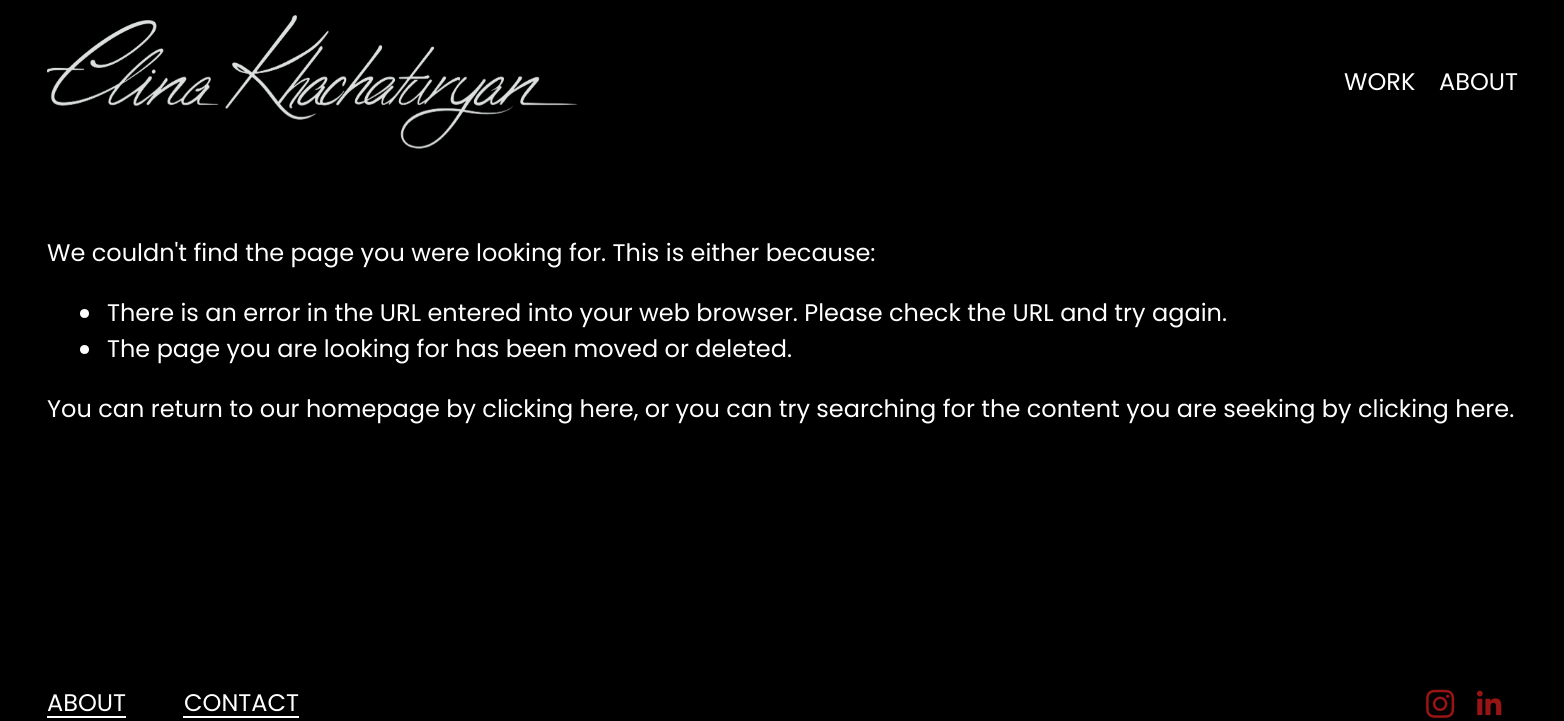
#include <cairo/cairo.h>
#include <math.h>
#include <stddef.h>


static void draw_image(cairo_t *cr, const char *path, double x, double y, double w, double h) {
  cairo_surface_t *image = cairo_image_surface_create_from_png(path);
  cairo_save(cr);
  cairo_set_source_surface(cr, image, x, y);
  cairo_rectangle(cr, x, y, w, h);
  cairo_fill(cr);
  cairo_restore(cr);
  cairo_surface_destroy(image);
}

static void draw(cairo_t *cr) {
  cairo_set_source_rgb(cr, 0, 0, 0);
  cairo_paint(cr);
  draw_image(cr, "images/1.png", 47, 15, 531, 134);
  cairo_set_source_rgb(cr, 1, 1, 1);
  cairo_arc(cr, 84.5, 313.5, 4.5, 0, 2 * M_PI);
  cairo_fill(cr);
  cairo_arc(cr, 84.5, 349.5, 4.5, 0, 2 * M_PI);
  cairo_fill(cr);
  cairo_rectangle(cr, 47, 716, 79, 2);
  cairo_fill(cr);
  cairo_rectangle(cr, 183, 716, 116, 2);
  cairo_fill(cr);
  draw_image(cr, "images/2.png", 1426, 689, 29, 29);
  draw_image(cr, "images/3.png", 1476, 690, 26, 26);
  cairo_select_font_face(cr, "Poppins", CAIRO_FONT_SLANT_NORMAL, CAIRO_FONT_WEIGHT_NORMAL);
  cairo_set_font_size(cr, 24);
  cairo_move_to(cr, 1344, 90);
  cairo_show_text(cr, "WORK");
  cairo_move_to(cr, 1439, 90);
  cairo_show_text(cr, "ABOUT");
  cairo_move_to(cr, 47, 261);
  cairo_show_text(cr, "We couldn't find the page you were looking for. This is either because:");
  cairo_move_to(cr, 107, 321);
  cairo_show_text(cr, "There is an error in the URL entered into your web browser. Please check the URL and try again.");
  cairo_move_to(cr, 107, 357);
  cairo_show_text(cr, "The page you are looking for has been moved or deleted.");
  cairo_move_to(cr, 47, 417);
  cairo_show_text(cr, "You can return to our homepage by clicking here, or you can try searching for the content you are seeking by clicking here.");
  cairo_move_to(cr, 47, 711);
  cairo_show_text(cr, "ABOUT");
  cairo_move_to(cr, 184, 711);
  cairo_show_text(cr, "CONTACT");
}

int main(void) {
  cairo_surface_t *surface = cairo_image_surface_create(CAIRO_FORMAT_RGB24, 1564, 721);
  cairo_t *cr = cairo_create(surface);
  cairo_font_options_t *options = cairo_font_options_create();
  cairo_font_options_set_hint_metrics(options, CAIRO_HINT_METRICS_OFF);
  cairo_font_options_set_hint_style(options, CAIRO_HINT_STYLE_NONE);
  cairo_set_font_options(cr, options);
  cairo_set_miter_limit(cr, 4);
  draw(cr);
  cairo_surface_write_to_png(surface, "out.png");
  cairo_font_options_destroy(options);
  cairo_destroy(cr);
  cairo_surface_destroy(surface);
  return 0;
}
